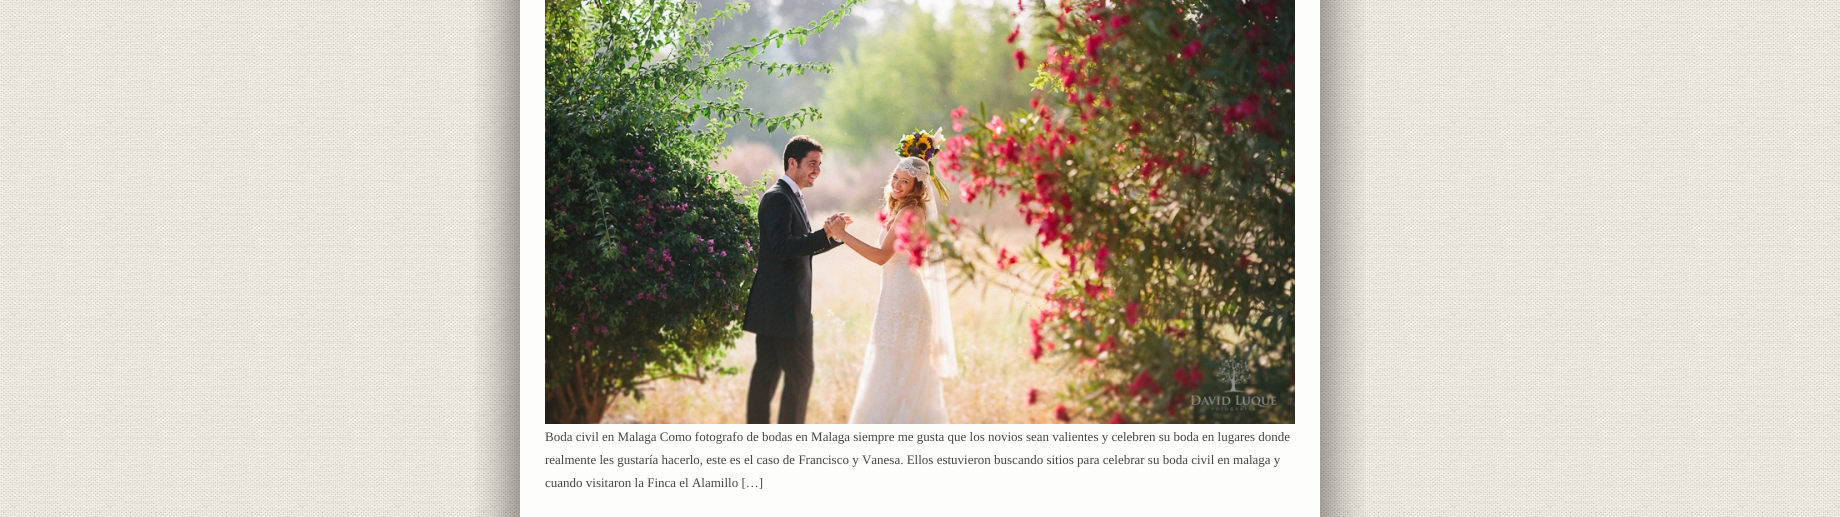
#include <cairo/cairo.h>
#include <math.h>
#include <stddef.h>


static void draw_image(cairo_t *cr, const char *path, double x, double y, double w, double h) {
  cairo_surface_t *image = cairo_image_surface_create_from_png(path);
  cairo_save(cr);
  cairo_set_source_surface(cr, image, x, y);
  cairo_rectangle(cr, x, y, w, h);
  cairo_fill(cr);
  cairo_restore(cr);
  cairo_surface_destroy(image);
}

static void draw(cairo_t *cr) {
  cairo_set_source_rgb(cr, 1, 1, 1);
  cairo_paint(cr);
  draw_image(cr, "images/1.png", 0, 0, 1840, 517);
  draw_image(cr, "images/2.png", 475, 0, 45, 517);
  draw_image(cr, "images/3.png", 1320, 0, 45, 517);
  cairo_set_source_rgb(cr, 253 / 255.0, 253 / 255.0, 252 / 255.0);
  cairo_rectangle(cr, 520, 0, 800, 517);
  cairo_fill(cr);
  draw_image(cr, "images/4.png", 545, 0, 750, 424);
  cairo_select_font_face(cr, "Liberation Serif", CAIRO_FONT_SLANT_NORMAL, CAIRO_FONT_WEIGHT_NORMAL);
  cairo_set_font_size(cr, 13);
  cairo_set_source_rgb(cr, 68 / 255.0, 68 / 255.0, 68 / 255.0);
  cairo_move_to(cr, 545, 441);
  cairo_show_text(cr, "Boda civil en Malaga Como fotografo de bodas en Malaga siempre me gusta que los novios sean valientes y celebren su boda en lugares donde");
  cairo_move_to(cr, 545, 464);
  cairo_show_text(cr, "realmente les gustaría hacerlo, este es el caso de Francisco y Vanesa. Ellos estuvieron buscando sitios para celebrar su boda civil en malaga y");
  cairo_move_to(cr, 545, 487);
  cairo_show_text(cr, "cuando visitaron la Finca el Alamillo […]");
}

int main(void) {
  cairo_surface_t *surface = cairo_image_surface_create(CAIRO_FORMAT_RGB24, 1840, 517);
  cairo_t *cr = cairo_create(surface);
  cairo_font_options_t *options = cairo_font_options_create();
  cairo_font_options_set_hint_metrics(options, CAIRO_HINT_METRICS_OFF);
  cairo_font_options_set_hint_style(options, CAIRO_HINT_STYLE_NONE);
  cairo_set_font_options(cr, options);
  cairo_set_miter_limit(cr, 4);
  draw(cr);
  cairo_surface_write_to_png(surface, "out.png");
  cairo_font_options_destroy(options);
  cairo_destroy(cr);
  cairo_surface_destroy(surface);
  return 0;
}
